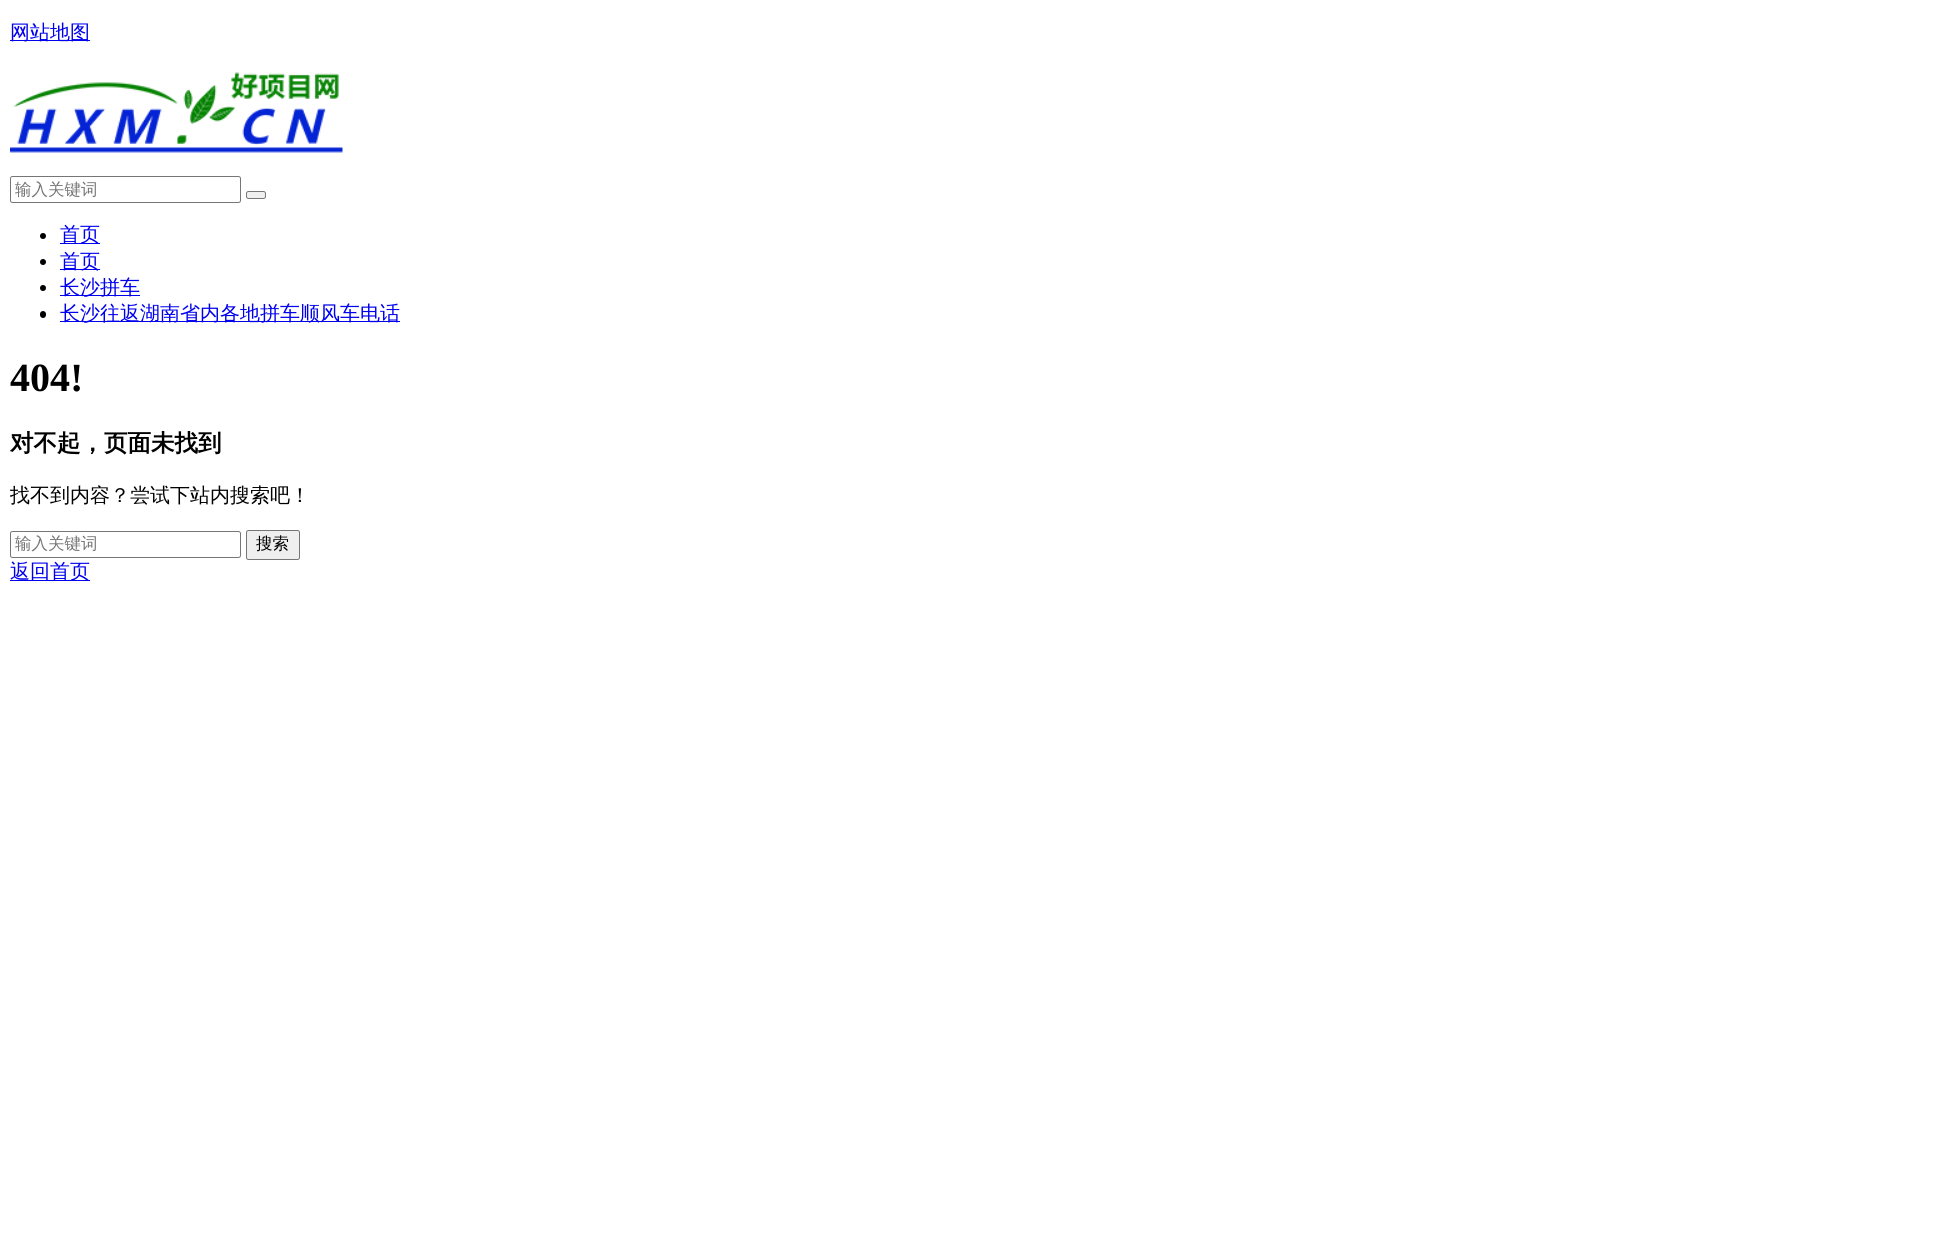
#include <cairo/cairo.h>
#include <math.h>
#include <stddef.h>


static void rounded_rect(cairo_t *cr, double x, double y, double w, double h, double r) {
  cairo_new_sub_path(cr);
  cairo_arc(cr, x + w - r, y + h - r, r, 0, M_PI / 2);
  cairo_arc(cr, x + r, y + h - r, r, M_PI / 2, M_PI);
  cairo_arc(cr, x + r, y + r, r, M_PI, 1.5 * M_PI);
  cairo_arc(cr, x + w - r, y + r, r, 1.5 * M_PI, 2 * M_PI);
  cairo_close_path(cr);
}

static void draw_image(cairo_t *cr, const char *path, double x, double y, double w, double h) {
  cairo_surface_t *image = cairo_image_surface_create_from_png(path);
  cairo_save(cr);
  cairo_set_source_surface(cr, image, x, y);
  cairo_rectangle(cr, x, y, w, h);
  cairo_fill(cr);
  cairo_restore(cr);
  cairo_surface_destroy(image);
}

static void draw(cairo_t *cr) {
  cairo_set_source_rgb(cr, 1, 1, 1);
  cairo_paint(cr);
  cairo_set_source_rgb(cr, 0, 0, 238 / 255.0);
  cairo_rectangle(cr, 10, 40, 80, 1);
  cairo_fill(cr);
  draw_image(cr, "images/1.png", 10, 72, 333, 81);
  rounded_rect(cr, 10.5, 176.5, 230, 26, 2);
  cairo_set_source_rgb(cr, 118 / 255.0, 118 / 255.0, 118 / 255.0);
  cairo_set_line_width(cr, 1);
  cairo_stroke(cr);
  cairo_set_source_rgb(cr, 239 / 255.0, 239 / 255.0, 239 / 255.0);
  rounded_rect(cr, 246.5, 191.5, 19, 7, 2);
  cairo_fill_preserve(cr);
  cairo_set_source_rgb(cr, 118 / 255.0, 118 / 255.0, 118 / 255.0);
  cairo_stroke(cr);
  cairo_set_source_rgb(cr, 0, 0, 0);
  cairo_arc(cr, 43, 236, 3, 0, 2 * M_PI);
  cairo_fill(cr);
  cairo_set_source_rgb(cr, 0, 0, 238 / 255.0);
  cairo_rectangle(cr, 60, 243, 40, 1);
  cairo_fill(cr);
  cairo_set_source_rgb(cr, 0, 0, 0);
  cairo_arc(cr, 43, 262, 3, 0, 2 * M_PI);
  cairo_fill(cr);
  cairo_set_source_rgb(cr, 0, 0, 238 / 255.0);
  cairo_rectangle(cr, 60, 269, 40, 1);
  cairo_fill(cr);
  cairo_set_source_rgb(cr, 0, 0, 0);
  cairo_arc(cr, 43, 288, 3, 0, 2 * M_PI);
  cairo_fill(cr);
  cairo_set_source_rgb(cr, 0, 0, 238 / 255.0);
  cairo_rectangle(cr, 60, 295, 80, 1);
  cairo_fill(cr);
  cairo_set_source_rgb(cr, 0, 0, 0);
  rounded_rect(cr, 40, 311, 6, 7, 3);
  cairo_fill(cr);
  cairo_set_source_rgb(cr, 0, 0, 238 / 255.0);
  cairo_rectangle(cr, 60, 321, 340, 1);
  cairo_fill(cr);
  rounded_rect(cr, 10.5, 531.5, 230, 26, 2);
  cairo_set_source_rgb(cr, 118 / 255.0, 118 / 255.0, 118 / 255.0);
  cairo_stroke(cr);
  cairo_set_source_rgb(cr, 239 / 255.0, 239 / 255.0, 239 / 255.0);
  rounded_rect(cr, 246.5, 530.5, 53, 29, 2);
  cairo_fill_preserve(cr);
  cairo_set_source_rgb(cr, 118 / 255.0, 118 / 255.0, 118 / 255.0);
  cairo_stroke(cr);
  cairo_set_source_rgb(cr, 0, 0, 238 / 255.0);
  cairo_rectangle(cr, 10, 580, 80, 1);
  cairo_fill(cr);
  cairo_select_font_face(cr, "WenQuanYi Zen Hei Medium", CAIRO_FONT_SLANT_NORMAL, CAIRO_FONT_WEIGHT_NORMAL);
  cairo_set_font_size(cr, 20);
  cairo_move_to(cr, 10, 39);
  cairo_show_text(cr, "网站地图");
  cairo_set_font_size(cr, 16.5);
  cairo_set_source_rgb(cr, 117 / 255.0, 117 / 255.0, 117 / 255.0);
  cairo_move_to(cr, 15, 195);
  cairo_show_text(cr, "输入关键词");
  cairo_set_font_size(cr, 20);
  cairo_set_source_rgb(cr, 0, 0, 238 / 255.0);
  cairo_move_to(cr, 60, 241);
  cairo_show_text(cr, "首页");
  cairo_move_to(cr, 60, 268);
  cairo_show_text(cr, "首页");
  cairo_move_to(cr, 60, 294);
  cairo_show_text(cr, "长沙拼车");
  cairo_move_to(cr, 60, 320);
  cairo_show_text(cr, "长沙往返湖南省内各地拼车顺风车电话");
  cairo_select_font_face(cr, "Liberation Serif", CAIRO_FONT_SLANT_NORMAL, CAIRO_FONT_WEIGHT_BOLD);
  cairo_set_font_size(cr, 40);
  cairo_set_source_rgb(cr, 0, 0, 0);
  cairo_move_to(cr, 10, 391);
  cairo_show_text(cr, "404!");
  cairo_select_font_face(cr, "WenQuanYi Zen Hei", CAIRO_FONT_SLANT_NORMAL, CAIRO_FONT_WEIGHT_BOLD);
  cairo_set_font_size(cr, 23.5);
  cairo_move_to(cr, 10, 451);
  cairo_show_text(cr, "对不起，页面未找到");
  cairo_select_font_face(cr, "WenQuanYi Zen Hei Medium", CAIRO_FONT_SLANT_NORMAL, CAIRO_FONT_WEIGHT_NORMAL);
  cairo_set_font_size(cr, 20);
  cairo_move_to(cr, 10, 502);
  cairo_show_text(cr, "找不到内容？尝试下站内搜索吧！");
  cairo_set_font_size(cr, 16.5);
  cairo_set_source_rgb(cr, 117 / 255.0, 117 / 255.0, 117 / 255.0);
  cairo_move_to(cr, 15, 549);
  cairo_show_text(cr, "输入关键词");
  cairo_set_source_rgb(cr, 0, 0, 0);
  cairo_move_to(cr, 256, 549);
  cairo_show_text(cr, "搜索");
  cairo_set_font_size(cr, 20);
  cairo_set_source_rgb(cr, 0, 0, 238 / 255.0);
  cairo_move_to(cr, 10, 578);
  cairo_show_text(cr, "返回首页");
}

int main(void) {
  cairo_surface_t *surface = cairo_image_surface_create(CAIRO_FORMAT_RGB24, 1940, 1241);
  cairo_t *cr = cairo_create(surface);
  cairo_font_options_t *options = cairo_font_options_create();
  cairo_font_options_set_hint_metrics(options, CAIRO_HINT_METRICS_OFF);
  cairo_font_options_set_hint_style(options, CAIRO_HINT_STYLE_NONE);
  cairo_set_font_options(cr, options);
  cairo_set_miter_limit(cr, 4);
  draw(cr);
  cairo_surface_write_to_png(surface, "out.png");
  cairo_font_options_destroy(options);
  cairo_destroy(cr);
  cairo_surface_destroy(surface);
  return 0;
}
